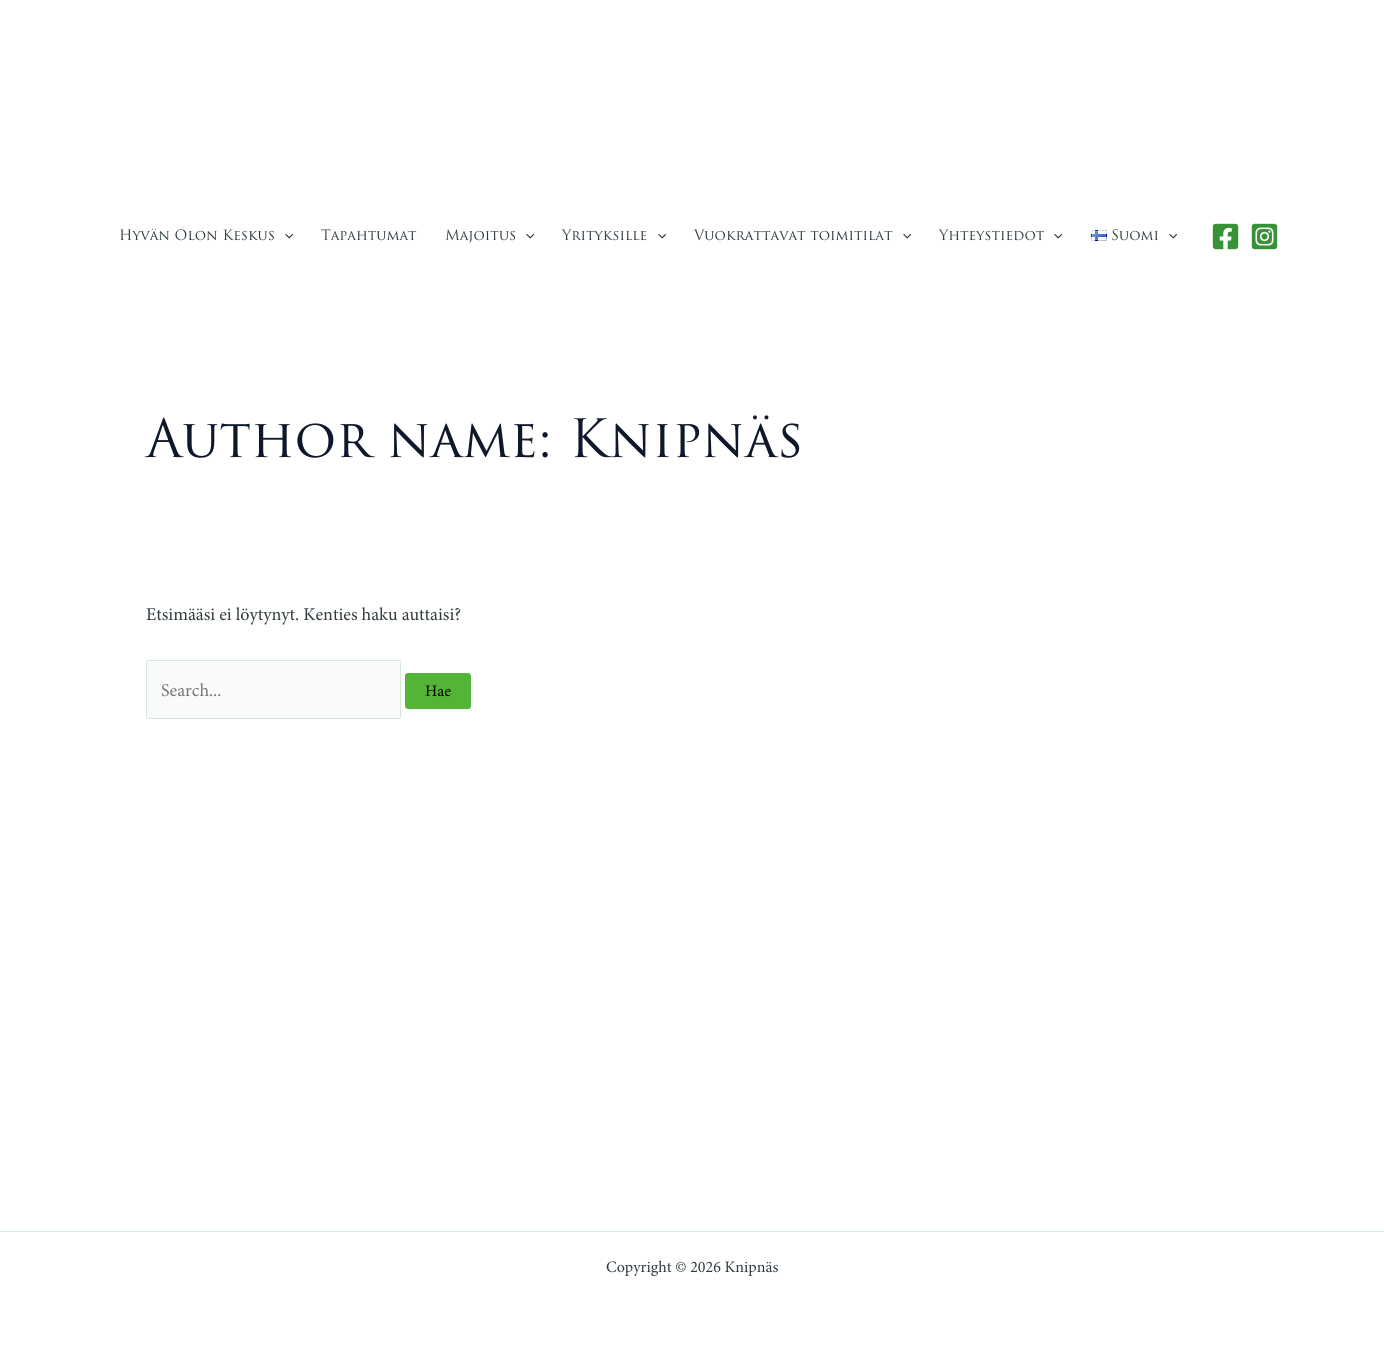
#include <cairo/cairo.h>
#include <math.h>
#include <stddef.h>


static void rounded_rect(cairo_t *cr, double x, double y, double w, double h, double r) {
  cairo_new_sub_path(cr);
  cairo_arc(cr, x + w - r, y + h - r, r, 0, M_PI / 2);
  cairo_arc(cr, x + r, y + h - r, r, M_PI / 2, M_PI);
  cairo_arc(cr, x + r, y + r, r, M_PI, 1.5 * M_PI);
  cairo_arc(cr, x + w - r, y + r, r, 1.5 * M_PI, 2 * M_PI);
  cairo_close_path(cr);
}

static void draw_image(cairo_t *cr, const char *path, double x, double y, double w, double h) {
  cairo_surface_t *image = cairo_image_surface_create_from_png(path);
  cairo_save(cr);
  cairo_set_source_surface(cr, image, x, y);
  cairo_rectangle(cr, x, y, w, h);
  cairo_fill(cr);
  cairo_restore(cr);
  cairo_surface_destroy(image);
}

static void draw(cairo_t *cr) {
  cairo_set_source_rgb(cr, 1, 1, 1);
  cairo_paint(cr);
  draw_image(cr, "images/1.png", 285, 233, 8, 6);
  draw_image(cr, "images/1.png", 526, 233, 8, 6);
  draw_image(cr, "images/1.png", 658, 233, 8, 6);
  draw_image(cr, "images/1.png", 903, 233, 8, 6);
  draw_image(cr, "images/2.png", 1054, 233, 9, 6);
  draw_image(cr, "images/3.png", 1091, 230, 16, 11);
  draw_image(cr, "images/1.png", 1169, 233, 8, 6);
  draw_image(cr, "images/4.png", 1212, 223, 27, 27);
  draw_image(cr, "images/5.png", 1251, 223, 27, 27);
  cairo_set_source_rgb(cr, 249 / 255.0, 250 / 255.0, 251 / 255.0);
  rounded_rect(cr, 146.5, 660.5, 254, 58, 1.5);
  cairo_fill_preserve(cr);
  cairo_set_source_rgb(cr, 213 / 255.0, 234 / 255.0, 216 / 255.0);
  cairo_set_line_width(cr, 1);
  cairo_stroke(cr);
  cairo_set_source_rgb(cr, 84 / 255.0, 180 / 255.0, 53 / 255.0);
  rounded_rect(cr, 405, 673, 66, 36, 3);
  cairo_fill(cr);
  cairo_set_source_rgb(cr, 213 / 255.0, 234 / 255.0, 216 / 255.0);
  cairo_rectangle(cr, 0, 1231, 1384, 1);
  cairo_fill(cr);
  cairo_select_font_face(cr, "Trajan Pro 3", CAIRO_FONT_SLANT_NORMAL, CAIRO_FONT_WEIGHT_NORMAL);
  cairo_set_font_size(cr, 14);
  cairo_set_source_rgb(cr, 47 / 255.0, 59 / 255.0, 64 / 255.0);
  cairo_move_to(cr, 119, 240);
  cairo_show_text(cr, "Hyvän Olon Keskus");
  cairo_move_to(cr, 321, 240);
  cairo_show_text(cr, "Tapahtumat");
  cairo_move_to(cr, 445, 240);
  cairo_show_text(cr, "Majoitus");
  cairo_move_to(cr, 562, 240);
  cairo_show_text(cr, "Yrityksille");
  cairo_move_to(cr, 694, 240);
  cairo_show_text(cr, "Vuokrattavat toimitilat");
  cairo_move_to(cr, 939, 240);
  cairo_show_text(cr, "Yhteystiedot");
  cairo_move_to(cr, 1111, 240);
  cairo_show_text(cr, "Suomi");
  cairo_set_font_size(cr, 51.5);
  cairo_set_source_rgb(cr, 15 / 255.0, 23 / 255.0, 42 / 255.0);
  cairo_move_to(cr, 146, 457);
  cairo_show_text(cr, "Author name: Knipnäs");
  cairo_select_font_face(cr, "Minion", CAIRO_FONT_SLANT_NORMAL, CAIRO_FONT_WEIGHT_NORMAL);
  cairo_set_font_size(cr, 18);
  cairo_set_source_rgb(cr, 47 / 255.0, 59 / 255.0, 64 / 255.0);
  cairo_move_to(cr, 146, 620);
  cairo_show_text(cr, "Etsimääsi ei löytynyt. Kenties haku auttaisi?");
  cairo_set_source_rgb(cr, 117 / 255.0, 117 / 255.0, 117 / 255.0);
  cairo_move_to(cr, 161, 696);
  cairo_show_text(cr, "Search...");
  cairo_set_font_size(cr, 16);
  cairo_set_source_rgb(cr, 0, 0, 0);
  cairo_move_to(cr, 425, 696);
  cairo_show_text(cr, "Hae");
  cairo_set_source_rgb(cr, 47 / 255.0, 59 / 255.0, 64 / 255.0);
  cairo_move_to(cr, 606, 1272);
  cairo_show_text(cr, "Copyright © 2026 Knipnäs");
}

int main(void) {
  cairo_surface_t *surface = cairo_image_surface_create(CAIRO_FORMAT_RGB24, 1384, 1352);
  cairo_t *cr = cairo_create(surface);
  cairo_font_options_t *options = cairo_font_options_create();
  cairo_font_options_set_hint_metrics(options, CAIRO_HINT_METRICS_OFF);
  cairo_font_options_set_hint_style(options, CAIRO_HINT_STYLE_NONE);
  cairo_set_font_options(cr, options);
  cairo_set_miter_limit(cr, 4);
  draw(cr);
  cairo_surface_write_to_png(surface, "out.png");
  cairo_font_options_destroy(options);
  cairo_destroy(cr);
  cairo_surface_destroy(surface);
  return 0;
}
